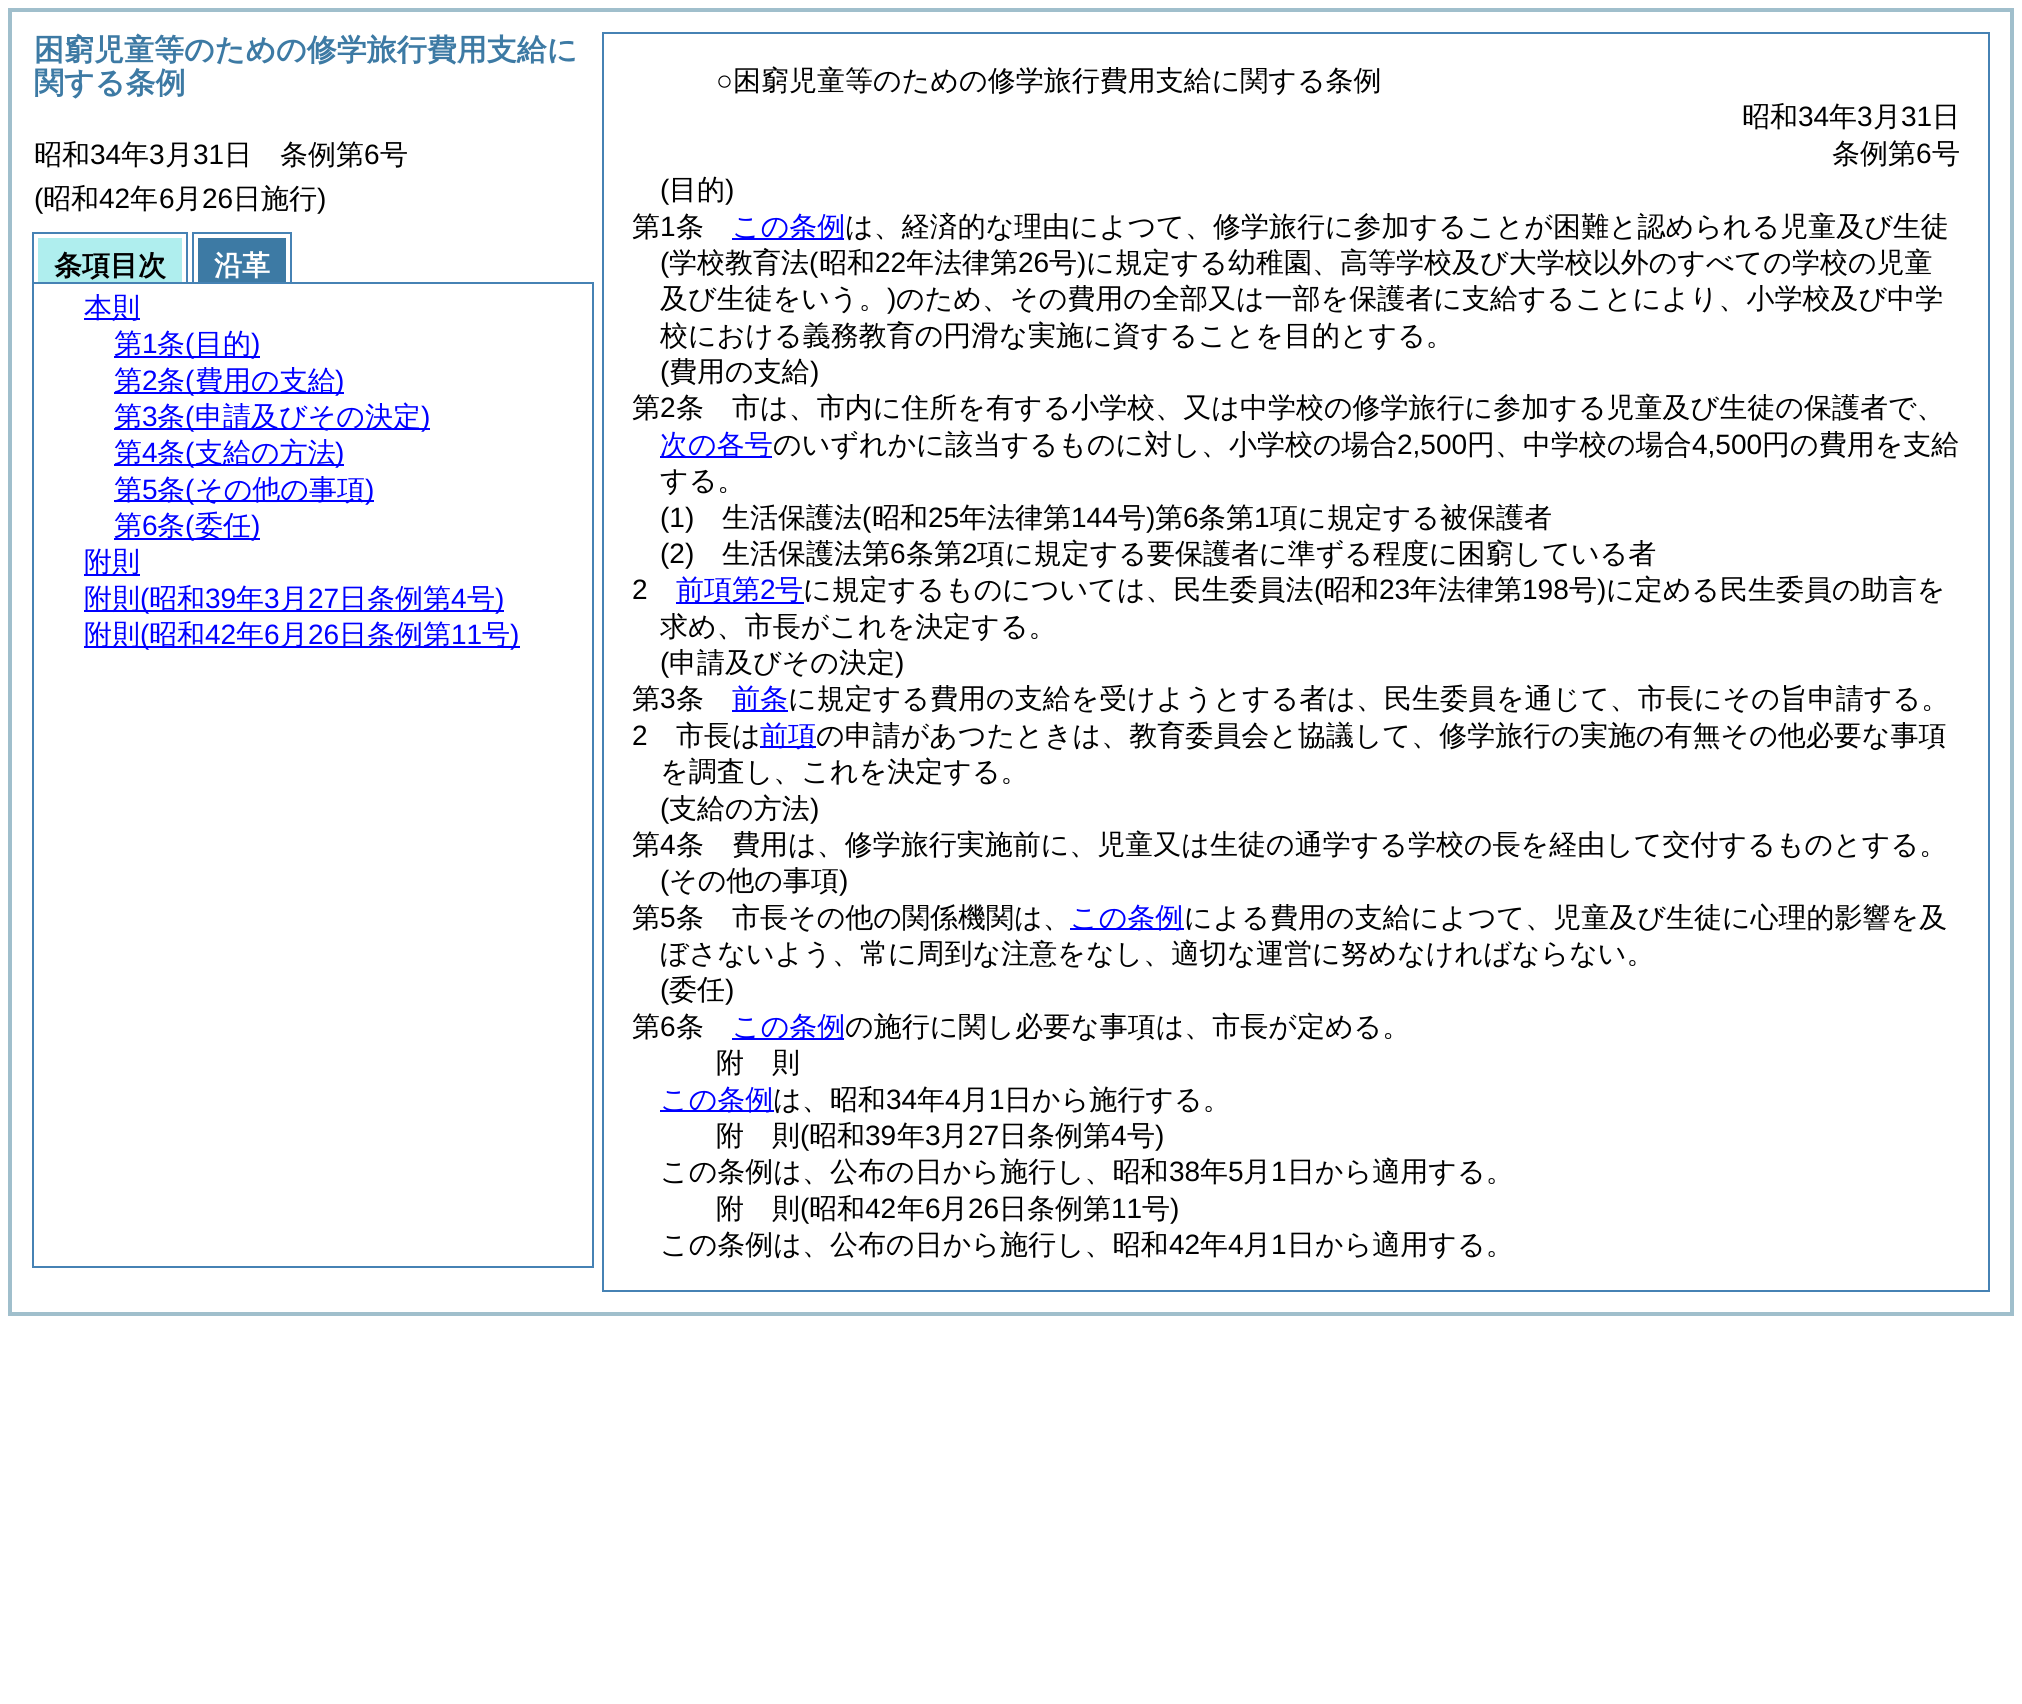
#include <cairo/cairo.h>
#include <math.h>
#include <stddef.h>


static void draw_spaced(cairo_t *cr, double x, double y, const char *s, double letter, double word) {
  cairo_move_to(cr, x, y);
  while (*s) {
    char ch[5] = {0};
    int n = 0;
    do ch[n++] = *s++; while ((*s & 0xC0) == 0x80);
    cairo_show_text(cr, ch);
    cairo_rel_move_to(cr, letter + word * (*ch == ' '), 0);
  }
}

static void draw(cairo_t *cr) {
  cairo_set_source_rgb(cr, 1, 1, 1);
  cairo_paint(cr);
  cairo_rectangle(cr, 10, 10, 2002, 1304);
  cairo_set_source_rgb(cr, 160 / 255.0, 191 / 255.0, 204 / 255.0);
  cairo_set_line_width(cr, 4);
  cairo_stroke(cr);
  cairo_set_source_rgb(cr, 70 / 255.0, 130 / 255.0, 180 / 255.0);
  cairo_rectangle(cr, 32, 232, 156, 2);
  cairo_fill(cr);
  cairo_rectangle(cr, 186, 232, 2, 52);
  cairo_fill(cr);
  cairo_rectangle(cr, 32, 232, 2, 52);
  cairo_fill(cr);
  cairo_set_source_rgb(cr, 175 / 255.0, 238 / 255.0, 238 / 255.0);
  cairo_rectangle(cr, 38, 238, 144, 44);
  cairo_fill(cr);
  cairo_set_source_rgb(cr, 70 / 255.0, 130 / 255.0, 180 / 255.0);
  cairo_rectangle(cr, 192, 232, 100, 2);
  cairo_fill(cr);
  cairo_rectangle(cr, 290, 232, 2, 52);
  cairo_fill(cr);
  cairo_rectangle(cr, 192, 232, 2, 52);
  cairo_fill(cr);
  cairo_set_source_rgb(cr, 61 / 255.0, 122 / 255.0, 164 / 255.0);
  cairo_rectangle(cr, 198, 238, 88, 44);
  cairo_fill(cr);
  cairo_rectangle(cr, 33, 283, 560, 984);
  cairo_set_source_rgb(cr, 70 / 255.0, 130 / 255.0, 180 / 255.0);
  cairo_set_line_width(cr, 2);
  cairo_stroke(cr);
  cairo_set_source_rgb(cr, 0, 0, 1);
  cairo_rectangle(cr, 84, 318, 56, 2);
  cairo_fill(cr);
  cairo_rectangle(cr, 114, 356, 146, 2);
  cairo_fill(cr);
  cairo_rectangle(cr, 114, 392, 230, 2);
  cairo_fill(cr);
  cairo_rectangle(cr, 114, 428, 316, 2);
  cairo_fill(cr);
  cairo_rectangle(cr, 114, 464, 230, 2);
  cairo_fill(cr);
  cairo_rectangle(cr, 114, 500, 260, 2);
  cairo_fill(cr);
  cairo_rectangle(cr, 114, 538, 146, 2);
  cairo_fill(cr);
  cairo_rectangle(cr, 84, 574, 56, 2);
  cairo_fill(cr);
  cairo_rectangle(cr, 84, 610, 420, 2);
  cairo_fill(cr);
  cairo_rectangle(cr, 84, 646, 436, 2);
  cairo_fill(cr);
  cairo_rectangle(cr, 603, 33, 1386, 1258);
  cairo_set_source_rgb(cr, 70 / 255.0, 130 / 255.0, 180 / 255.0);
  cairo_stroke(cr);
  cairo_set_source_rgb(cr, 0, 0, 1);
  cairo_rectangle(cr, 732, 238, 112, 2);
  cairo_fill(cr);
  cairo_rectangle(cr, 660, 456, 112, 2);
  cairo_fill(cr);
  cairo_rectangle(cr, 676, 602, 128, 2);
  cairo_fill(cr);
  cairo_rectangle(cr, 732, 710, 56, 2);
  cairo_fill(cr);
  cairo_rectangle(cr, 760, 746, 56, 2);
  cairo_fill(cr);
  cairo_rectangle(cr, 1070, 928, 114, 2);
  cairo_fill(cr);
  cairo_rectangle(cr, 732, 1038, 112, 2);
  cairo_fill(cr);
  cairo_rectangle(cr, 660, 1110, 114, 2);
  cairo_fill(cr);
  cairo_select_font_face(cr, "WenQuanYi Zen Hei", CAIRO_FONT_SLANT_NORMAL, CAIRO_FONT_WEIGHT_BOLD);
  cairo_set_font_size(cr, 30);
  cairo_set_source_rgb(cr, 61 / 255.0, 122 / 255.0, 164 / 255.0);
  cairo_move_to(cr, 34, 60);
  cairo_show_text(cr, "困窮児童等のための修学旅行費用支給に");
  cairo_move_to(cr, 34, 93);
  cairo_show_text(cr, "関する条例");
  cairo_select_font_face(cr, "WenQuanYi Zen Hei Medium", CAIRO_FONT_SLANT_NORMAL, CAIRO_FONT_WEIGHT_NORMAL);
  cairo_set_font_size(cr, 28);
  cairo_set_source_rgb(cr, 0, 0, 0);
  cairo_move_to(cr, 34, 164);
  cairo_show_text(cr, "昭和");
  cairo_select_font_face(cr, "Liberation Sans", CAIRO_FONT_SLANT_NORMAL, CAIRO_FONT_WEIGHT_NORMAL);
  cairo_move_to(cr, 90, 164);
  cairo_show_text(cr, "34");
  cairo_select_font_face(cr, "WenQuanYi Zen Hei Medium", CAIRO_FONT_SLANT_NORMAL, CAIRO_FONT_WEIGHT_NORMAL);
  cairo_move_to(cr, 121, 164);
  cairo_show_text(cr, "年");
  cairo_select_font_face(cr, "Liberation Sans", CAIRO_FONT_SLANT_NORMAL, CAIRO_FONT_WEIGHT_NORMAL);
  cairo_move_to(cr, 149, 164);
  cairo_show_text(cr, "3");
  cairo_select_font_face(cr, "WenQuanYi Zen Hei Medium", CAIRO_FONT_SLANT_NORMAL, CAIRO_FONT_WEIGHT_NORMAL);
  cairo_move_to(cr, 165, 164);
  cairo_show_text(cr, "月");
  cairo_select_font_face(cr, "Liberation Sans", CAIRO_FONT_SLANT_NORMAL, CAIRO_FONT_WEIGHT_NORMAL);
  cairo_move_to(cr, 193, 164);
  cairo_show_text(cr, "31");
  cairo_select_font_face(cr, "WenQuanYi Zen Hei Medium", CAIRO_FONT_SLANT_NORMAL, CAIRO_FONT_WEIGHT_NORMAL);
  cairo_move_to(cr, 224, 164);
  cairo_show_text(cr, "日　条例第");
  cairo_select_font_face(cr, "Liberation Sans", CAIRO_FONT_SLANT_NORMAL, CAIRO_FONT_WEIGHT_NORMAL);
  cairo_move_to(cr, 364, 164);
  cairo_show_text(cr, "6");
  cairo_select_font_face(cr, "WenQuanYi Zen Hei Medium", CAIRO_FONT_SLANT_NORMAL, CAIRO_FONT_WEIGHT_NORMAL);
  cairo_move_to(cr, 380, 164);
  cairo_show_text(cr, "号");
  cairo_select_font_face(cr, "Liberation Sans", CAIRO_FONT_SLANT_NORMAL, CAIRO_FONT_WEIGHT_NORMAL);
  cairo_move_to(cr, 34, 208);
  cairo_show_text(cr, "(");
  cairo_select_font_face(cr, "WenQuanYi Zen Hei Medium", CAIRO_FONT_SLANT_NORMAL, CAIRO_FONT_WEIGHT_NORMAL);
  cairo_move_to(cr, 43, 208);
  cairo_show_text(cr, "昭和");
  cairo_select_font_face(cr, "Liberation Sans", CAIRO_FONT_SLANT_NORMAL, CAIRO_FONT_WEIGHT_NORMAL);
  cairo_move_to(cr, 99, 208);
  cairo_show_text(cr, "42");
  cairo_select_font_face(cr, "WenQuanYi Zen Hei Medium", CAIRO_FONT_SLANT_NORMAL, CAIRO_FONT_WEIGHT_NORMAL);
  cairo_move_to(cr, 130, 208);
  cairo_show_text(cr, "年");
  cairo_select_font_face(cr, "Liberation Sans", CAIRO_FONT_SLANT_NORMAL, CAIRO_FONT_WEIGHT_NORMAL);
  cairo_move_to(cr, 159, 208);
  cairo_show_text(cr, "6");
  cairo_select_font_face(cr, "WenQuanYi Zen Hei Medium", CAIRO_FONT_SLANT_NORMAL, CAIRO_FONT_WEIGHT_NORMAL);
  cairo_move_to(cr, 174, 208);
  cairo_show_text(cr, "月");
  cairo_select_font_face(cr, "Liberation Sans", CAIRO_FONT_SLANT_NORMAL, CAIRO_FONT_WEIGHT_NORMAL);
  cairo_move_to(cr, 202, 208);
  cairo_show_text(cr, "26");
  cairo_select_font_face(cr, "WenQuanYi Zen Hei Medium", CAIRO_FONT_SLANT_NORMAL, CAIRO_FONT_WEIGHT_NORMAL);
  cairo_move_to(cr, 233, 208);
  cairo_show_text(cr, "日施行");
  cairo_select_font_face(cr, "Liberation Sans", CAIRO_FONT_SLANT_NORMAL, CAIRO_FONT_WEIGHT_NORMAL);
  cairo_move_to(cr, 317, 208);
  cairo_show_text(cr, ")");
  cairo_select_font_face(cr, "WenQuanYi Zen Hei", CAIRO_FONT_SLANT_NORMAL, CAIRO_FONT_WEIGHT_BOLD);
  cairo_move_to(cr, 54, 275);
  cairo_show_text(cr, "条項目次");
  cairo_set_source_rgb(cr, 1, 1, 1);
  cairo_move_to(cr, 214, 275);
  cairo_show_text(cr, "沿革");
  cairo_select_font_face(cr, "WenQuanYi Zen Hei Medium", CAIRO_FONT_SLANT_NORMAL, CAIRO_FONT_WEIGHT_NORMAL);
  cairo_set_source_rgb(cr, 0, 0, 1);
  cairo_move_to(cr, 84, 317);
  cairo_show_text(cr, "本則");
  cairo_move_to(cr, 114, 353);
  cairo_show_text(cr, "第");
  cairo_select_font_face(cr, "Liberation Sans", CAIRO_FONT_SLANT_NORMAL, CAIRO_FONT_WEIGHT_NORMAL);
  cairo_move_to(cr, 142, 353);
  cairo_show_text(cr, "1");
  cairo_select_font_face(cr, "WenQuanYi Zen Hei Medium", CAIRO_FONT_SLANT_NORMAL, CAIRO_FONT_WEIGHT_NORMAL);
  cairo_move_to(cr, 157, 353);
  cairo_show_text(cr, "条");
  cairo_select_font_face(cr, "Liberation Sans", CAIRO_FONT_SLANT_NORMAL, CAIRO_FONT_WEIGHT_NORMAL);
  cairo_move_to(cr, 185, 353);
  cairo_show_text(cr, "(");
  cairo_select_font_face(cr, "WenQuanYi Zen Hei Medium", CAIRO_FONT_SLANT_NORMAL, CAIRO_FONT_WEIGHT_NORMAL);
  cairo_move_to(cr, 195, 353);
  cairo_show_text(cr, "目的");
  cairo_select_font_face(cr, "Liberation Sans", CAIRO_FONT_SLANT_NORMAL, CAIRO_FONT_WEIGHT_NORMAL);
  cairo_move_to(cr, 251, 353);
  cairo_show_text(cr, ")");
  cairo_select_font_face(cr, "WenQuanYi Zen Hei Medium", CAIRO_FONT_SLANT_NORMAL, CAIRO_FONT_WEIGHT_NORMAL);
  cairo_move_to(cr, 114, 390);
  cairo_show_text(cr, "第");
  cairo_select_font_face(cr, "Liberation Sans", CAIRO_FONT_SLANT_NORMAL, CAIRO_FONT_WEIGHT_NORMAL);
  cairo_move_to(cr, 142, 390);
  cairo_show_text(cr, "2");
  cairo_select_font_face(cr, "WenQuanYi Zen Hei Medium", CAIRO_FONT_SLANT_NORMAL, CAIRO_FONT_WEIGHT_NORMAL);
  cairo_move_to(cr, 157, 390);
  cairo_show_text(cr, "条");
  cairo_select_font_face(cr, "Liberation Sans", CAIRO_FONT_SLANT_NORMAL, CAIRO_FONT_WEIGHT_NORMAL);
  cairo_move_to(cr, 185, 390);
  cairo_show_text(cr, "(");
  cairo_select_font_face(cr, "WenQuanYi Zen Hei Medium", CAIRO_FONT_SLANT_NORMAL, CAIRO_FONT_WEIGHT_NORMAL);
  cairo_move_to(cr, 195, 390);
  cairo_show_text(cr, "費用の支給");
  cairo_select_font_face(cr, "Liberation Sans", CAIRO_FONT_SLANT_NORMAL, CAIRO_FONT_WEIGHT_NORMAL);
  cairo_move_to(cr, 335, 390);
  cairo_show_text(cr, ")");
  cairo_select_font_face(cr, "WenQuanYi Zen Hei Medium", CAIRO_FONT_SLANT_NORMAL, CAIRO_FONT_WEIGHT_NORMAL);
  cairo_move_to(cr, 114, 426);
  cairo_show_text(cr, "第");
  cairo_select_font_face(cr, "Liberation Sans", CAIRO_FONT_SLANT_NORMAL, CAIRO_FONT_WEIGHT_NORMAL);
  cairo_move_to(cr, 142, 426);
  cairo_show_text(cr, "3");
  cairo_select_font_face(cr, "WenQuanYi Zen Hei Medium", CAIRO_FONT_SLANT_NORMAL, CAIRO_FONT_WEIGHT_NORMAL);
  cairo_move_to(cr, 157, 426);
  cairo_show_text(cr, "条");
  cairo_select_font_face(cr, "Liberation Sans", CAIRO_FONT_SLANT_NORMAL, CAIRO_FONT_WEIGHT_NORMAL);
  cairo_move_to(cr, 185, 426);
  cairo_show_text(cr, "(");
  cairo_select_font_face(cr, "WenQuanYi Zen Hei Medium", CAIRO_FONT_SLANT_NORMAL, CAIRO_FONT_WEIGHT_NORMAL);
  cairo_move_to(cr, 195, 426);
  cairo_show_text(cr, "申請及びその決定");
  cairo_select_font_face(cr, "Liberation Sans", CAIRO_FONT_SLANT_NORMAL, CAIRO_FONT_WEIGHT_NORMAL);
  cairo_move_to(cr, 421, 426);
  cairo_show_text(cr, ")");
  cairo_select_font_face(cr, "WenQuanYi Zen Hei Medium", CAIRO_FONT_SLANT_NORMAL, CAIRO_FONT_WEIGHT_NORMAL);
  cairo_move_to(cr, 114, 462);
  cairo_show_text(cr, "第");
  cairo_select_font_face(cr, "Liberation Sans", CAIRO_FONT_SLANT_NORMAL, CAIRO_FONT_WEIGHT_NORMAL);
  cairo_move_to(cr, 142, 462);
  cairo_show_text(cr, "4");
  cairo_select_font_face(cr, "WenQuanYi Zen Hei Medium", CAIRO_FONT_SLANT_NORMAL, CAIRO_FONT_WEIGHT_NORMAL);
  cairo_move_to(cr, 157, 462);
  cairo_show_text(cr, "条");
  cairo_select_font_face(cr, "Liberation Sans", CAIRO_FONT_SLANT_NORMAL, CAIRO_FONT_WEIGHT_NORMAL);
  cairo_move_to(cr, 185, 462);
  cairo_show_text(cr, "(");
  cairo_select_font_face(cr, "WenQuanYi Zen Hei Medium", CAIRO_FONT_SLANT_NORMAL, CAIRO_FONT_WEIGHT_NORMAL);
  cairo_move_to(cr, 195, 462);
  cairo_show_text(cr, "支給の方法");
  cairo_select_font_face(cr, "Liberation Sans", CAIRO_FONT_SLANT_NORMAL, CAIRO_FONT_WEIGHT_NORMAL);
  cairo_move_to(cr, 335, 462);
  cairo_show_text(cr, ")");
  cairo_select_font_face(cr, "WenQuanYi Zen Hei Medium", CAIRO_FONT_SLANT_NORMAL, CAIRO_FONT_WEIGHT_NORMAL);
  cairo_move_to(cr, 114, 499);
  cairo_show_text(cr, "第");
  cairo_select_font_face(cr, "Liberation Sans", CAIRO_FONT_SLANT_NORMAL, CAIRO_FONT_WEIGHT_NORMAL);
  cairo_move_to(cr, 142, 499);
  cairo_show_text(cr, "5");
  cairo_select_font_face(cr, "WenQuanYi Zen Hei Medium", CAIRO_FONT_SLANT_NORMAL, CAIRO_FONT_WEIGHT_NORMAL);
  cairo_move_to(cr, 157, 499);
  cairo_show_text(cr, "条");
  cairo_select_font_face(cr, "Liberation Sans", CAIRO_FONT_SLANT_NORMAL, CAIRO_FONT_WEIGHT_NORMAL);
  cairo_move_to(cr, 185, 499);
  cairo_show_text(cr, "(");
  cairo_select_font_face(cr, "WenQuanYi Zen Hei Medium", CAIRO_FONT_SLANT_NORMAL, CAIRO_FONT_WEIGHT_NORMAL);
  cairo_move_to(cr, 195, 499);
  cairo_show_text(cr, "その他の事項");
  cairo_select_font_face(cr, "Liberation Sans", CAIRO_FONT_SLANT_NORMAL, CAIRO_FONT_WEIGHT_NORMAL);
  cairo_move_to(cr, 365, 499);
  cairo_show_text(cr, ")");
  cairo_select_font_face(cr, "WenQuanYi Zen Hei Medium", CAIRO_FONT_SLANT_NORMAL, CAIRO_FONT_WEIGHT_NORMAL);
  cairo_move_to(cr, 114, 535);
  cairo_show_text(cr, "第");
  cairo_select_font_face(cr, "Liberation Sans", CAIRO_FONT_SLANT_NORMAL, CAIRO_FONT_WEIGHT_NORMAL);
  cairo_move_to(cr, 142, 535);
  cairo_show_text(cr, "6");
  cairo_select_font_face(cr, "WenQuanYi Zen Hei Medium", CAIRO_FONT_SLANT_NORMAL, CAIRO_FONT_WEIGHT_NORMAL);
  cairo_move_to(cr, 157, 535);
  cairo_show_text(cr, "条");
  cairo_select_font_face(cr, "Liberation Sans", CAIRO_FONT_SLANT_NORMAL, CAIRO_FONT_WEIGHT_NORMAL);
  cairo_move_to(cr, 185, 535);
  cairo_show_text(cr, "(");
  cairo_select_font_face(cr, "WenQuanYi Zen Hei Medium", CAIRO_FONT_SLANT_NORMAL, CAIRO_FONT_WEIGHT_NORMAL);
  cairo_move_to(cr, 195, 535);
  cairo_show_text(cr, "委任");
  cairo_select_font_face(cr, "Liberation Sans", CAIRO_FONT_SLANT_NORMAL, CAIRO_FONT_WEIGHT_NORMAL);
  cairo_move_to(cr, 251, 535);
  cairo_show_text(cr, ")");
  cairo_select_font_face(cr, "WenQuanYi Zen Hei Medium", CAIRO_FONT_SLANT_NORMAL, CAIRO_FONT_WEIGHT_NORMAL);
  cairo_move_to(cr, 84, 571);
  cairo_show_text(cr, "附則");
  cairo_move_to(cr, 84, 608);
  cairo_show_text(cr, "附則");
  cairo_select_font_face(cr, "Liberation Sans", CAIRO_FONT_SLANT_NORMAL, CAIRO_FONT_WEIGHT_NORMAL);
  cairo_move_to(cr, 140, 608);
  cairo_show_text(cr, "(");
  cairo_select_font_face(cr, "WenQuanYi Zen Hei Medium", CAIRO_FONT_SLANT_NORMAL, CAIRO_FONT_WEIGHT_NORMAL);
  cairo_move_to(cr, 149, 608);
  cairo_show_text(cr, "昭和");
  cairo_select_font_face(cr, "Liberation Sans", CAIRO_FONT_SLANT_NORMAL, CAIRO_FONT_WEIGHT_NORMAL);
  cairo_move_to(cr, 205, 608);
  cairo_show_text(cr, "39");
  cairo_select_font_face(cr, "WenQuanYi Zen Hei Medium", CAIRO_FONT_SLANT_NORMAL, CAIRO_FONT_WEIGHT_NORMAL);
  cairo_move_to(cr, 236, 608);
  cairo_show_text(cr, "年");
  cairo_select_font_face(cr, "Liberation Sans", CAIRO_FONT_SLANT_NORMAL, CAIRO_FONT_WEIGHT_NORMAL);
  cairo_move_to(cr, 264, 608);
  cairo_show_text(cr, "3");
  cairo_select_font_face(cr, "WenQuanYi Zen Hei Medium", CAIRO_FONT_SLANT_NORMAL, CAIRO_FONT_WEIGHT_NORMAL);
  cairo_move_to(cr, 280, 608);
  cairo_show_text(cr, "月");
  cairo_select_font_face(cr, "Liberation Sans", CAIRO_FONT_SLANT_NORMAL, CAIRO_FONT_WEIGHT_NORMAL);
  cairo_move_to(cr, 308, 608);
  cairo_show_text(cr, "27");
  cairo_select_font_face(cr, "WenQuanYi Zen Hei Medium", CAIRO_FONT_SLANT_NORMAL, CAIRO_FONT_WEIGHT_NORMAL);
  cairo_move_to(cr, 339, 608);
  cairo_show_text(cr, "日条例第");
  cairo_select_font_face(cr, "Liberation Sans", CAIRO_FONT_SLANT_NORMAL, CAIRO_FONT_WEIGHT_NORMAL);
  cairo_move_to(cr, 451, 608);
  cairo_show_text(cr, "4");
  cairo_select_font_face(cr, "WenQuanYi Zen Hei Medium", CAIRO_FONT_SLANT_NORMAL, CAIRO_FONT_WEIGHT_NORMAL);
  cairo_move_to(cr, 467, 608);
  cairo_show_text(cr, "号");
  cairo_select_font_face(cr, "Liberation Sans", CAIRO_FONT_SLANT_NORMAL, CAIRO_FONT_WEIGHT_NORMAL);
  cairo_move_to(cr, 495, 608);
  cairo_show_text(cr, ")");
  cairo_select_font_face(cr, "WenQuanYi Zen Hei Medium", CAIRO_FONT_SLANT_NORMAL, CAIRO_FONT_WEIGHT_NORMAL);
  cairo_move_to(cr, 84, 644);
  cairo_show_text(cr, "附則");
  cairo_select_font_face(cr, "Liberation Sans", CAIRO_FONT_SLANT_NORMAL, CAIRO_FONT_WEIGHT_NORMAL);
  cairo_move_to(cr, 140, 644);
  cairo_show_text(cr, "(");
  cairo_select_font_face(cr, "WenQuanYi Zen Hei Medium", CAIRO_FONT_SLANT_NORMAL, CAIRO_FONT_WEIGHT_NORMAL);
  cairo_move_to(cr, 149, 644);
  cairo_show_text(cr, "昭和");
  cairo_select_font_face(cr, "Liberation Sans", CAIRO_FONT_SLANT_NORMAL, CAIRO_FONT_WEIGHT_NORMAL);
  cairo_move_to(cr, 205, 644);
  cairo_show_text(cr, "42");
  cairo_select_font_face(cr, "WenQuanYi Zen Hei Medium", CAIRO_FONT_SLANT_NORMAL, CAIRO_FONT_WEIGHT_NORMAL);
  cairo_move_to(cr, 236, 644);
  cairo_show_text(cr, "年");
  cairo_select_font_face(cr, "Liberation Sans", CAIRO_FONT_SLANT_NORMAL, CAIRO_FONT_WEIGHT_NORMAL);
  cairo_move_to(cr, 264, 644);
  cairo_show_text(cr, "6");
  cairo_select_font_face(cr, "WenQuanYi Zen Hei Medium", CAIRO_FONT_SLANT_NORMAL, CAIRO_FONT_WEIGHT_NORMAL);
  cairo_move_to(cr, 280, 644);
  cairo_show_text(cr, "月");
  cairo_select_font_face(cr, "Liberation Sans", CAIRO_FONT_SLANT_NORMAL, CAIRO_FONT_WEIGHT_NORMAL);
  cairo_move_to(cr, 308, 644);
  cairo_show_text(cr, "26");
  cairo_select_font_face(cr, "WenQuanYi Zen Hei Medium", CAIRO_FONT_SLANT_NORMAL, CAIRO_FONT_WEIGHT_NORMAL);
  cairo_move_to(cr, 339, 644);
  cairo_show_text(cr, "日条例第");
  cairo_select_font_face(cr, "Liberation Sans", CAIRO_FONT_SLANT_NORMAL, CAIRO_FONT_WEIGHT_NORMAL);
  cairo_move_to(cr, 451, 644);
  cairo_show_text(cr, "11");
  cairo_select_font_face(cr, "WenQuanYi Zen Hei Medium", CAIRO_FONT_SLANT_NORMAL, CAIRO_FONT_WEIGHT_NORMAL);
  cairo_move_to(cr, 482, 644);
  cairo_show_text(cr, "号");
  cairo_select_font_face(cr, "Liberation Sans", CAIRO_FONT_SLANT_NORMAL, CAIRO_FONT_WEIGHT_NORMAL);
  cairo_move_to(cr, 510, 644);
  cairo_show_text(cr, ")");
  cairo_set_source_rgb(cr, 0, 0, 0);
  cairo_move_to(cr, 716, 90);
  cairo_show_text(cr, "○");
  cairo_select_font_face(cr, "WenQuanYi Zen Hei Medium", CAIRO_FONT_SLANT_NORMAL, CAIRO_FONT_WEIGHT_NORMAL);
  cairo_move_to(cr, 733, 90);
  cairo_show_text(cr, "困窮児童等のための修学旅行費用支給に関する条例");
  cairo_move_to(cr, 1742, 126);
  cairo_show_text(cr, "昭和");
  cairo_select_font_face(cr, "Liberation Sans", CAIRO_FONT_SLANT_NORMAL, CAIRO_FONT_WEIGHT_NORMAL);
  cairo_move_to(cr, 1798, 126);
  cairo_show_text(cr, "34");
  cairo_select_font_face(cr, "WenQuanYi Zen Hei Medium", CAIRO_FONT_SLANT_NORMAL, CAIRO_FONT_WEIGHT_NORMAL);
  cairo_move_to(cr, 1829, 126);
  cairo_show_text(cr, "年");
  cairo_select_font_face(cr, "Liberation Sans", CAIRO_FONT_SLANT_NORMAL, CAIRO_FONT_WEIGHT_NORMAL);
  cairo_move_to(cr, 1857, 126);
  cairo_show_text(cr, "3");
  cairo_select_font_face(cr, "WenQuanYi Zen Hei Medium", CAIRO_FONT_SLANT_NORMAL, CAIRO_FONT_WEIGHT_NORMAL);
  cairo_move_to(cr, 1873, 126);
  cairo_show_text(cr, "月");
  cairo_select_font_face(cr, "Liberation Sans", CAIRO_FONT_SLANT_NORMAL, CAIRO_FONT_WEIGHT_NORMAL);
  cairo_move_to(cr, 1901, 126);
  cairo_show_text(cr, "31");
  cairo_select_font_face(cr, "WenQuanYi Zen Hei Medium", CAIRO_FONT_SLANT_NORMAL, CAIRO_FONT_WEIGHT_NORMAL);
  cairo_move_to(cr, 1932, 126);
  cairo_show_text(cr, "日");
  cairo_move_to(cr, 1832, 163);
  cairo_show_text(cr, "条例第");
  cairo_select_font_face(cr, "Liberation Sans", CAIRO_FONT_SLANT_NORMAL, CAIRO_FONT_WEIGHT_NORMAL);
  cairo_move_to(cr, 1916, 163);
  cairo_show_text(cr, "6");
  cairo_select_font_face(cr, "WenQuanYi Zen Hei Medium", CAIRO_FONT_SLANT_NORMAL, CAIRO_FONT_WEIGHT_NORMAL);
  cairo_move_to(cr, 1932, 163);
  cairo_show_text(cr, "号");
  cairo_select_font_face(cr, "Liberation Sans", CAIRO_FONT_SLANT_NORMAL, CAIRO_FONT_WEIGHT_NORMAL);
  cairo_move_to(cr, 660, 199);
  cairo_show_text(cr, "(");
  cairo_select_font_face(cr, "WenQuanYi Zen Hei Medium", CAIRO_FONT_SLANT_NORMAL, CAIRO_FONT_WEIGHT_NORMAL);
  cairo_move_to(cr, 669, 199);
  cairo_show_text(cr, "目的");
  cairo_select_font_face(cr, "Liberation Sans", CAIRO_FONT_SLANT_NORMAL, CAIRO_FONT_WEIGHT_NORMAL);
  cairo_move_to(cr, 725, 199);
  cairo_show_text(cr, ")");
  cairo_select_font_face(cr, "WenQuanYi Zen Hei Medium", CAIRO_FONT_SLANT_NORMAL, CAIRO_FONT_WEIGHT_NORMAL);
  cairo_move_to(cr, 632, 236);
  cairo_show_text(cr, "第");
  cairo_select_font_face(cr, "Liberation Sans", CAIRO_FONT_SLANT_NORMAL, CAIRO_FONT_WEIGHT_NORMAL);
  cairo_move_to(cr, 660, 236);
  cairo_show_text(cr, "1");
  cairo_select_font_face(cr, "WenQuanYi Zen Hei Medium", CAIRO_FONT_SLANT_NORMAL, CAIRO_FONT_WEIGHT_NORMAL);
  cairo_move_to(cr, 676, 236);
  cairo_show_text(cr, "条");
  cairo_set_source_rgb(cr, 0, 0, 1);
  cairo_move_to(cr, 732, 236);
  cairo_show_text(cr, "この条例");
  cairo_set_source_rgb(cr, 0, 0, 0);
  cairo_move_to(cr, 845, 236);
  cairo_show_text(cr, "は、経済的な理由によつて、修学旅行に参加することが困難と認められる児童及び生徒");
  cairo_select_font_face(cr, "Liberation Sans", CAIRO_FONT_SLANT_NORMAL, CAIRO_FONT_WEIGHT_NORMAL);
  cairo_move_to(cr, 660, 272);
  cairo_show_text(cr, "(");
  cairo_select_font_face(cr, "WenQuanYi Zen Hei Medium", CAIRO_FONT_SLANT_NORMAL, CAIRO_FONT_WEIGHT_NORMAL);
  cairo_move_to(cr, 669, 272);
  cairo_show_text(cr, "学校教育法");
  cairo_select_font_face(cr, "Liberation Sans", CAIRO_FONT_SLANT_NORMAL, CAIRO_FONT_WEIGHT_NORMAL);
  cairo_move_to(cr, 809, 272);
  cairo_show_text(cr, "(");
  cairo_select_font_face(cr, "WenQuanYi Zen Hei Medium", CAIRO_FONT_SLANT_NORMAL, CAIRO_FONT_WEIGHT_NORMAL);
  cairo_move_to(cr, 819, 272);
  cairo_show_text(cr, "昭和");
  cairo_select_font_face(cr, "Liberation Sans", CAIRO_FONT_SLANT_NORMAL, CAIRO_FONT_WEIGHT_NORMAL);
  cairo_move_to(cr, 875, 272);
  cairo_show_text(cr, "22");
  cairo_select_font_face(cr, "WenQuanYi Zen Hei Medium", CAIRO_FONT_SLANT_NORMAL, CAIRO_FONT_WEIGHT_NORMAL);
  cairo_move_to(cr, 906, 272);
  cairo_show_text(cr, "年法律第");
  cairo_select_font_face(cr, "Liberation Sans", CAIRO_FONT_SLANT_NORMAL, CAIRO_FONT_WEIGHT_NORMAL);
  cairo_move_to(cr, 1018, 272);
  cairo_show_text(cr, "26");
  cairo_select_font_face(cr, "WenQuanYi Zen Hei Medium", CAIRO_FONT_SLANT_NORMAL, CAIRO_FONT_WEIGHT_NORMAL);
  cairo_move_to(cr, 1049, 272);
  cairo_show_text(cr, "号");
  cairo_select_font_face(cr, "Liberation Sans", CAIRO_FONT_SLANT_NORMAL, CAIRO_FONT_WEIGHT_NORMAL);
  cairo_move_to(cr, 1077, 272);
  cairo_show_text(cr, ")");
  cairo_select_font_face(cr, "WenQuanYi Zen Hei Medium", CAIRO_FONT_SLANT_NORMAL, CAIRO_FONT_WEIGHT_NORMAL);
  cairo_move_to(cr, 1086, 272);
  cairo_show_text(cr, "に規定する幼稚園、高等学校及び大学校以外のすべての学校の児童");
  cairo_move_to(cr, 660, 308);
  cairo_show_text(cr, "及び生徒をいう。");
  cairo_select_font_face(cr, "Liberation Sans", CAIRO_FONT_SLANT_NORMAL, CAIRO_FONT_WEIGHT_NORMAL);
  cairo_move_to(cr, 887, 308);
  cairo_show_text(cr, ")");
  cairo_select_font_face(cr, "WenQuanYi Zen Hei Medium", CAIRO_FONT_SLANT_NORMAL, CAIRO_FONT_WEIGHT_NORMAL);
  cairo_move_to(cr, 896, 308);
  cairo_show_text(cr, "のため、その費用の全部又は一部を保護者に支給することにより、小学校及び中学");
  cairo_move_to(cr, 660, 345);
  cairo_show_text(cr, "校における義務教育の円滑な実施に資することを目的とする。");
  cairo_select_font_face(cr, "Liberation Sans", CAIRO_FONT_SLANT_NORMAL, CAIRO_FONT_WEIGHT_NORMAL);
  cairo_move_to(cr, 660, 381);
  cairo_show_text(cr, "(");
  cairo_select_font_face(cr, "WenQuanYi Zen Hei Medium", CAIRO_FONT_SLANT_NORMAL, CAIRO_FONT_WEIGHT_NORMAL);
  cairo_move_to(cr, 669, 381);
  cairo_show_text(cr, "費用の支給");
  cairo_select_font_face(cr, "Liberation Sans", CAIRO_FONT_SLANT_NORMAL, CAIRO_FONT_WEIGHT_NORMAL);
  cairo_move_to(cr, 810, 381);
  cairo_show_text(cr, ")");
  cairo_select_font_face(cr, "WenQuanYi Zen Hei Medium", CAIRO_FONT_SLANT_NORMAL, CAIRO_FONT_WEIGHT_NORMAL);
  cairo_move_to(cr, 632, 417);
  cairo_show_text(cr, "第");
  cairo_select_font_face(cr, "Liberation Sans", CAIRO_FONT_SLANT_NORMAL, CAIRO_FONT_WEIGHT_NORMAL);
  cairo_move_to(cr, 660, 417);
  cairo_show_text(cr, "2");
  cairo_select_font_face(cr, "WenQuanYi Zen Hei Medium", CAIRO_FONT_SLANT_NORMAL, CAIRO_FONT_WEIGHT_NORMAL);
  cairo_move_to(cr, 676, 417);
  cairo_show_text(cr, "条");
  cairo_move_to(cr, 732, 417);
  cairo_show_text(cr, "市は、市内に住所を有する小学校、又は中学校の修学旅行に参加する児童及び生徒の保護者で、");
  cairo_set_source_rgb(cr, 0, 0, 1);
  cairo_move_to(cr, 660, 454);
  cairo_show_text(cr, "次の各号");
  cairo_set_source_rgb(cr, 0, 0, 0);
  cairo_move_to(cr, 773, 454);
  cairo_show_text(cr, "のいずれかに該当するものに対し、小学校の場合");
  cairo_select_font_face(cr, "Liberation Sans", CAIRO_FONT_SLANT_NORMAL, CAIRO_FONT_WEIGHT_NORMAL);
  cairo_move_to(cr, 1397, 454);
  cairo_show_text(cr, "2,500");
  cairo_select_font_face(cr, "WenQuanYi Zen Hei Medium", CAIRO_FONT_SLANT_NORMAL, CAIRO_FONT_WEIGHT_NORMAL);
  cairo_move_to(cr, 1467, 454);
  cairo_show_text(cr, "円、中学校の場合");
  cairo_select_font_face(cr, "Liberation Sans", CAIRO_FONT_SLANT_NORMAL, CAIRO_FONT_WEIGHT_NORMAL);
  cairo_move_to(cr, 1692, 454);
  cairo_show_text(cr, "4,500");
  cairo_select_font_face(cr, "WenQuanYi Zen Hei Medium", CAIRO_FONT_SLANT_NORMAL, CAIRO_FONT_WEIGHT_NORMAL);
  cairo_move_to(cr, 1762, 454);
  cairo_show_text(cr, "円の費用を支給");
  cairo_move_to(cr, 660, 490);
  cairo_show_text(cr, "する。");
  cairo_select_font_face(cr, "Liberation Sans", CAIRO_FONT_SLANT_NORMAL, CAIRO_FONT_WEIGHT_NORMAL);
  cairo_move_to(cr, 660, 527);
  cairo_show_text(cr, "(1)");
  cairo_select_font_face(cr, "WenQuanYi Zen Hei Medium", CAIRO_FONT_SLANT_NORMAL, CAIRO_FONT_WEIGHT_NORMAL);
  cairo_move_to(cr, 722, 527);
  cairo_show_text(cr, "生活保護法");
  cairo_select_font_face(cr, "Liberation Sans", CAIRO_FONT_SLANT_NORMAL, CAIRO_FONT_WEIGHT_NORMAL);
  cairo_move_to(cr, 862, 527);
  cairo_show_text(cr, "(");
  cairo_select_font_face(cr, "WenQuanYi Zen Hei Medium", CAIRO_FONT_SLANT_NORMAL, CAIRO_FONT_WEIGHT_NORMAL);
  cairo_move_to(cr, 872, 527);
  cairo_show_text(cr, "昭和");
  cairo_select_font_face(cr, "Liberation Sans", CAIRO_FONT_SLANT_NORMAL, CAIRO_FONT_WEIGHT_NORMAL);
  cairo_move_to(cr, 928, 527);
  cairo_show_text(cr, "25");
  cairo_select_font_face(cr, "WenQuanYi Zen Hei Medium", CAIRO_FONT_SLANT_NORMAL, CAIRO_FONT_WEIGHT_NORMAL);
  cairo_move_to(cr, 959, 527);
  cairo_show_text(cr, "年法律第");
  cairo_select_font_face(cr, "Liberation Sans", CAIRO_FONT_SLANT_NORMAL, CAIRO_FONT_WEIGHT_NORMAL);
  cairo_move_to(cr, 1071, 527);
  cairo_show_text(cr, "144");
  cairo_select_font_face(cr, "WenQuanYi Zen Hei Medium", CAIRO_FONT_SLANT_NORMAL, CAIRO_FONT_WEIGHT_NORMAL);
  cairo_move_to(cr, 1118, 527);
  cairo_show_text(cr, "号");
  cairo_select_font_face(cr, "Liberation Sans", CAIRO_FONT_SLANT_NORMAL, CAIRO_FONT_WEIGHT_NORMAL);
  cairo_move_to(cr, 1146, 527);
  cairo_show_text(cr, ")");
  cairo_select_font_face(cr, "WenQuanYi Zen Hei Medium", CAIRO_FONT_SLANT_NORMAL, CAIRO_FONT_WEIGHT_NORMAL);
  cairo_move_to(cr, 1155, 527);
  cairo_show_text(cr, "第");
  cairo_select_font_face(cr, "Liberation Sans", CAIRO_FONT_SLANT_NORMAL, CAIRO_FONT_WEIGHT_NORMAL);
  cairo_move_to(cr, 1183, 527);
  cairo_show_text(cr, "6");
  cairo_select_font_face(cr, "WenQuanYi Zen Hei Medium", CAIRO_FONT_SLANT_NORMAL, CAIRO_FONT_WEIGHT_NORMAL);
  cairo_move_to(cr, 1198, 527);
  cairo_show_text(cr, "条第");
  cairo_select_font_face(cr, "Liberation Sans", CAIRO_FONT_SLANT_NORMAL, CAIRO_FONT_WEIGHT_NORMAL);
  cairo_move_to(cr, 1254, 527);
  cairo_show_text(cr, "1");
  cairo_select_font_face(cr, "WenQuanYi Zen Hei Medium", CAIRO_FONT_SLANT_NORMAL, CAIRO_FONT_WEIGHT_NORMAL);
  cairo_move_to(cr, 1270, 527);
  cairo_show_text(cr, "項に規定する被保護者");
  cairo_select_font_face(cr, "Liberation Sans", CAIRO_FONT_SLANT_NORMAL, CAIRO_FONT_WEIGHT_NORMAL);
  cairo_move_to(cr, 660, 563);
  cairo_show_text(cr, "(2)");
  cairo_select_font_face(cr, "WenQuanYi Zen Hei Medium", CAIRO_FONT_SLANT_NORMAL, CAIRO_FONT_WEIGHT_NORMAL);
  cairo_move_to(cr, 722, 563);
  cairo_show_text(cr, "生活保護法第");
  cairo_select_font_face(cr, "Liberation Sans", CAIRO_FONT_SLANT_NORMAL, CAIRO_FONT_WEIGHT_NORMAL);
  cairo_move_to(cr, 890, 563);
  cairo_show_text(cr, "6");
  cairo_select_font_face(cr, "WenQuanYi Zen Hei Medium", CAIRO_FONT_SLANT_NORMAL, CAIRO_FONT_WEIGHT_NORMAL);
  cairo_move_to(cr, 906, 563);
  cairo_show_text(cr, "条第");
  cairo_select_font_face(cr, "Liberation Sans", CAIRO_FONT_SLANT_NORMAL, CAIRO_FONT_WEIGHT_NORMAL);
  cairo_move_to(cr, 962, 563);
  cairo_show_text(cr, "2");
  cairo_select_font_face(cr, "WenQuanYi Zen Hei Medium", CAIRO_FONT_SLANT_NORMAL, CAIRO_FONT_WEIGHT_NORMAL);
  cairo_move_to(cr, 977, 563);
  cairo_show_text(cr, "項に規定する要保護者に準ずる程度に困窮している者");
  cairo_select_font_face(cr, "Liberation Sans", CAIRO_FONT_SLANT_NORMAL, CAIRO_FONT_WEIGHT_NORMAL);
  cairo_move_to(cr, 632, 599);
  cairo_show_text(cr, "2");
  cairo_select_font_face(cr, "WenQuanYi Zen Hei Medium", CAIRO_FONT_SLANT_NORMAL, CAIRO_FONT_WEIGHT_NORMAL);
  cairo_set_source_rgb(cr, 0, 0, 1);
  cairo_move_to(cr, 676, 599);
  cairo_show_text(cr, "前項第");
  cairo_select_font_face(cr, "Liberation Sans", CAIRO_FONT_SLANT_NORMAL, CAIRO_FONT_WEIGHT_NORMAL);
  cairo_move_to(cr, 760, 599);
  cairo_show_text(cr, "2");
  cairo_select_font_face(cr, "WenQuanYi Zen Hei Medium", CAIRO_FONT_SLANT_NORMAL, CAIRO_FONT_WEIGHT_NORMAL);
  cairo_move_to(cr, 775, 599);
  cairo_show_text(cr, "号");
  cairo_set_source_rgb(cr, 0, 0, 0);
  cairo_move_to(cr, 803, 599);
  cairo_show_text(cr, "に規定するものについては、民生委員法");
  cairo_select_font_face(cr, "Liberation Sans", CAIRO_FONT_SLANT_NORMAL, CAIRO_FONT_WEIGHT_NORMAL);
  cairo_move_to(cr, 1314, 599);
  cairo_show_text(cr, "(");
  cairo_select_font_face(cr, "WenQuanYi Zen Hei Medium", CAIRO_FONT_SLANT_NORMAL, CAIRO_FONT_WEIGHT_NORMAL);
  cairo_move_to(cr, 1323, 599);
  cairo_show_text(cr, "昭和");
  cairo_select_font_face(cr, "Liberation Sans", CAIRO_FONT_SLANT_NORMAL, CAIRO_FONT_WEIGHT_NORMAL);
  cairo_move_to(cr, 1379, 599);
  cairo_show_text(cr, "23");
  cairo_select_font_face(cr, "WenQuanYi Zen Hei Medium", CAIRO_FONT_SLANT_NORMAL, CAIRO_FONT_WEIGHT_NORMAL);
  cairo_move_to(cr, 1410, 599);
  cairo_show_text(cr, "年法律第");
  cairo_select_font_face(cr, "Liberation Sans", CAIRO_FONT_SLANT_NORMAL, CAIRO_FONT_WEIGHT_NORMAL);
  cairo_move_to(cr, 1522, 599);
  cairo_show_text(cr, "198");
  cairo_select_font_face(cr, "WenQuanYi Zen Hei Medium", CAIRO_FONT_SLANT_NORMAL, CAIRO_FONT_WEIGHT_NORMAL);
  cairo_move_to(cr, 1569, 599);
  cairo_show_text(cr, "号");
  cairo_select_font_face(cr, "Liberation Sans", CAIRO_FONT_SLANT_NORMAL, CAIRO_FONT_WEIGHT_NORMAL);
  cairo_move_to(cr, 1597, 599);
  cairo_show_text(cr, ")");
  cairo_select_font_face(cr, "WenQuanYi Zen Hei Medium", CAIRO_FONT_SLANT_NORMAL, CAIRO_FONT_WEIGHT_NORMAL);
  cairo_move_to(cr, 1606, 599);
  cairo_show_text(cr, "に定める民生委員の助言を");
  cairo_move_to(cr, 660, 636);
  cairo_show_text(cr, "求め、市長がこれを決定する。");
  cairo_select_font_face(cr, "Liberation Sans", CAIRO_FONT_SLANT_NORMAL, CAIRO_FONT_WEIGHT_NORMAL);
  cairo_move_to(cr, 660, 672);
  cairo_show_text(cr, "(");
  cairo_select_font_face(cr, "WenQuanYi Zen Hei Medium", CAIRO_FONT_SLANT_NORMAL, CAIRO_FONT_WEIGHT_NORMAL);
  cairo_move_to(cr, 669, 672);
  cairo_show_text(cr, "申請及びその決定");
  cairo_select_font_face(cr, "Liberation Sans", CAIRO_FONT_SLANT_NORMAL, CAIRO_FONT_WEIGHT_NORMAL);
  cairo_move_to(cr, 895, 672);
  cairo_show_text(cr, ")");
  cairo_select_font_face(cr, "WenQuanYi Zen Hei Medium", CAIRO_FONT_SLANT_NORMAL, CAIRO_FONT_WEIGHT_NORMAL);
  cairo_move_to(cr, 632, 708);
  cairo_show_text(cr, "第");
  cairo_select_font_face(cr, "Liberation Sans", CAIRO_FONT_SLANT_NORMAL, CAIRO_FONT_WEIGHT_NORMAL);
  cairo_move_to(cr, 660, 708);
  cairo_show_text(cr, "3");
  cairo_select_font_face(cr, "WenQuanYi Zen Hei Medium", CAIRO_FONT_SLANT_NORMAL, CAIRO_FONT_WEIGHT_NORMAL);
  cairo_move_to(cr, 676, 708);
  cairo_show_text(cr, "条");
  cairo_set_source_rgb(cr, 0, 0, 1);
  cairo_move_to(cr, 732, 708);
  cairo_show_text(cr, "前条");
  cairo_set_source_rgb(cr, 0, 0, 0);
  cairo_move_to(cr, 788, 708);
  cairo_show_text(cr, "に規定する費用の支給を受けようとする者は、民生委員を通じて、市長にその旨申請する。");
  cairo_select_font_face(cr, "Liberation Sans", CAIRO_FONT_SLANT_NORMAL, CAIRO_FONT_WEIGHT_NORMAL);
  cairo_move_to(cr, 632, 745);
  cairo_show_text(cr, "2");
  cairo_select_font_face(cr, "WenQuanYi Zen Hei Medium", CAIRO_FONT_SLANT_NORMAL, CAIRO_FONT_WEIGHT_NORMAL);
  cairo_move_to(cr, 676, 745);
  cairo_show_text(cr, "市長は");
  cairo_set_source_rgb(cr, 0, 0, 1);
  cairo_move_to(cr, 760, 745);
  cairo_show_text(cr, "前項");
  cairo_set_source_rgb(cr, 0, 0, 0);
  cairo_move_to(cr, 816, 745);
  cairo_show_text(cr, "の申請があつたときは、教育委員会と協議して、修学旅行の実施の有無その他必要な事項");
  cairo_move_to(cr, 660, 781);
  cairo_show_text(cr, "を調査し、これを決定する。");
  cairo_select_font_face(cr, "Liberation Sans", CAIRO_FONT_SLANT_NORMAL, CAIRO_FONT_WEIGHT_NORMAL);
  cairo_move_to(cr, 660, 818);
  cairo_show_text(cr, "(");
  cairo_select_font_face(cr, "WenQuanYi Zen Hei Medium", CAIRO_FONT_SLANT_NORMAL, CAIRO_FONT_WEIGHT_NORMAL);
  cairo_move_to(cr, 669, 818);
  cairo_show_text(cr, "支給の方法");
  cairo_select_font_face(cr, "Liberation Sans", CAIRO_FONT_SLANT_NORMAL, CAIRO_FONT_WEIGHT_NORMAL);
  cairo_move_to(cr, 810, 818);
  cairo_show_text(cr, ")");
  cairo_select_font_face(cr, "WenQuanYi Zen Hei Medium", CAIRO_FONT_SLANT_NORMAL, CAIRO_FONT_WEIGHT_NORMAL);
  cairo_move_to(cr, 632, 854);
  cairo_show_text(cr, "第");
  cairo_select_font_face(cr, "Liberation Sans", CAIRO_FONT_SLANT_NORMAL, CAIRO_FONT_WEIGHT_NORMAL);
  cairo_move_to(cr, 660, 854);
  cairo_show_text(cr, "4");
  cairo_select_font_face(cr, "WenQuanYi Zen Hei Medium", CAIRO_FONT_SLANT_NORMAL, CAIRO_FONT_WEIGHT_NORMAL);
  cairo_move_to(cr, 676, 854);
  cairo_show_text(cr, "条");
  cairo_move_to(cr, 732, 854);
  cairo_show_text(cr, "費用は、修学旅行実施前に、児童又は生徒の通学する学校の長を経由して交付するものとする。");
  cairo_select_font_face(cr, "Liberation Sans", CAIRO_FONT_SLANT_NORMAL, CAIRO_FONT_WEIGHT_NORMAL);
  cairo_move_to(cr, 660, 890);
  cairo_show_text(cr, "(");
  cairo_select_font_face(cr, "WenQuanYi Zen Hei Medium", CAIRO_FONT_SLANT_NORMAL, CAIRO_FONT_WEIGHT_NORMAL);
  cairo_move_to(cr, 669, 890);
  cairo_show_text(cr, "その他の事項");
  cairo_select_font_face(cr, "Liberation Sans", CAIRO_FONT_SLANT_NORMAL, CAIRO_FONT_WEIGHT_NORMAL);
  cairo_move_to(cr, 839, 890);
  cairo_show_text(cr, ")");
  cairo_select_font_face(cr, "WenQuanYi Zen Hei Medium", CAIRO_FONT_SLANT_NORMAL, CAIRO_FONT_WEIGHT_NORMAL);
  cairo_move_to(cr, 632, 927);
  cairo_show_text(cr, "第");
  cairo_select_font_face(cr, "Liberation Sans", CAIRO_FONT_SLANT_NORMAL, CAIRO_FONT_WEIGHT_NORMAL);
  cairo_move_to(cr, 660, 927);
  cairo_show_text(cr, "5");
  cairo_select_font_face(cr, "WenQuanYi Zen Hei Medium", CAIRO_FONT_SLANT_NORMAL, CAIRO_FONT_WEIGHT_NORMAL);
  cairo_move_to(cr, 676, 927);
  cairo_show_text(cr, "条");
  cairo_move_to(cr, 732, 927);
  cairo_show_text(cr, "市長その他の関係機関は、");
  cairo_set_source_rgb(cr, 0, 0, 1);
  cairo_move_to(cr, 1070, 927);
  cairo_show_text(cr, "この条例");
  cairo_set_source_rgb(cr, 0, 0, 0);
  cairo_move_to(cr, 1184, 927);
  cairo_show_text(cr, "による費用の支給によつて、児童及び生徒に心理的影響を及");
  cairo_move_to(cr, 660, 963);
  cairo_show_text(cr, "ぼさないよう、常に周到な注意をなし、適切な運営に努めなければならない。");
  cairo_select_font_face(cr, "Liberation Sans", CAIRO_FONT_SLANT_NORMAL, CAIRO_FONT_WEIGHT_NORMAL);
  cairo_move_to(cr, 660, 999);
  cairo_show_text(cr, "(");
  cairo_select_font_face(cr, "WenQuanYi Zen Hei Medium", CAIRO_FONT_SLANT_NORMAL, CAIRO_FONT_WEIGHT_NORMAL);
  cairo_move_to(cr, 669, 999);
  cairo_show_text(cr, "委任");
  cairo_select_font_face(cr, "Liberation Sans", CAIRO_FONT_SLANT_NORMAL, CAIRO_FONT_WEIGHT_NORMAL);
  cairo_move_to(cr, 725, 999);
  cairo_show_text(cr, ")");
  cairo_select_font_face(cr, "WenQuanYi Zen Hei Medium", CAIRO_FONT_SLANT_NORMAL, CAIRO_FONT_WEIGHT_NORMAL);
  cairo_move_to(cr, 632, 1036);
  cairo_show_text(cr, "第");
  cairo_select_font_face(cr, "Liberation Sans", CAIRO_FONT_SLANT_NORMAL, CAIRO_FONT_WEIGHT_NORMAL);
  cairo_move_to(cr, 660, 1036);
  cairo_show_text(cr, "6");
  cairo_select_font_face(cr, "WenQuanYi Zen Hei Medium", CAIRO_FONT_SLANT_NORMAL, CAIRO_FONT_WEIGHT_NORMAL);
  cairo_move_to(cr, 676, 1036);
  cairo_show_text(cr, "条");
  cairo_set_source_rgb(cr, 0, 0, 1);
  cairo_move_to(cr, 732, 1036);
  cairo_show_text(cr, "この条例");
  cairo_set_source_rgb(cr, 0, 0, 0);
  cairo_move_to(cr, 845, 1036);
  cairo_show_text(cr, "の施行に関し必要な事項は、市長が定める。");
  draw_spaced(cr, 716, 1072, "附", 28, 0);
  cairo_move_to(cr, 772, 1072);
  cairo_show_text(cr, "則");
  cairo_set_source_rgb(cr, 0, 0, 1);
  cairo_move_to(cr, 660, 1109);
  cairo_show_text(cr, "この条例");
  cairo_set_source_rgb(cr, 0, 0, 0);
  cairo_move_to(cr, 773, 1109);
  cairo_show_text(cr, "は、昭和");
  cairo_select_font_face(cr, "Liberation Sans", CAIRO_FONT_SLANT_NORMAL, CAIRO_FONT_WEIGHT_NORMAL);
  cairo_move_to(cr, 886, 1109);
  cairo_show_text(cr, "34");
  cairo_select_font_face(cr, "WenQuanYi Zen Hei Medium", CAIRO_FONT_SLANT_NORMAL, CAIRO_FONT_WEIGHT_NORMAL);
  cairo_move_to(cr, 917, 1109);
  cairo_show_text(cr, "年");
  cairo_select_font_face(cr, "Liberation Sans", CAIRO_FONT_SLANT_NORMAL, CAIRO_FONT_WEIGHT_NORMAL);
  cairo_move_to(cr, 945, 1109);
  cairo_show_text(cr, "4");
  cairo_select_font_face(cr, "WenQuanYi Zen Hei Medium", CAIRO_FONT_SLANT_NORMAL, CAIRO_FONT_WEIGHT_NORMAL);
  cairo_move_to(cr, 961, 1109);
  cairo_show_text(cr, "月");
  cairo_select_font_face(cr, "Liberation Sans", CAIRO_FONT_SLANT_NORMAL, CAIRO_FONT_WEIGHT_NORMAL);
  cairo_move_to(cr, 989, 1109);
  cairo_show_text(cr, "1");
  cairo_select_font_face(cr, "WenQuanYi Zen Hei Medium", CAIRO_FONT_SLANT_NORMAL, CAIRO_FONT_WEIGHT_NORMAL);
  cairo_move_to(cr, 1004, 1109);
  cairo_show_text(cr, "日から施行する。");
  draw_spaced(cr, 716, 1145, "附", 28, 0);
  cairo_move_to(cr, 772, 1145);
  cairo_show_text(cr, "則");
  cairo_select_font_face(cr, "Liberation Sans", CAIRO_FONT_SLANT_NORMAL, CAIRO_FONT_WEIGHT_NORMAL);
  cairo_move_to(cr, 800, 1145);
  cairo_show_text(cr, "(");
  cairo_select_font_face(cr, "WenQuanYi Zen Hei Medium", CAIRO_FONT_SLANT_NORMAL, CAIRO_FONT_WEIGHT_NORMAL);
  cairo_move_to(cr, 809, 1145);
  cairo_show_text(cr, "昭和");
  cairo_select_font_face(cr, "Liberation Sans", CAIRO_FONT_SLANT_NORMAL, CAIRO_FONT_WEIGHT_NORMAL);
  cairo_move_to(cr, 865, 1145);
  cairo_show_text(cr, "39");
  cairo_select_font_face(cr, "WenQuanYi Zen Hei Medium", CAIRO_FONT_SLANT_NORMAL, CAIRO_FONT_WEIGHT_NORMAL);
  cairo_move_to(cr, 897, 1145);
  cairo_show_text(cr, "年");
  cairo_select_font_face(cr, "Liberation Sans", CAIRO_FONT_SLANT_NORMAL, CAIRO_FONT_WEIGHT_NORMAL);
  cairo_move_to(cr, 925, 1145);
  cairo_show_text(cr, "3");
  cairo_select_font_face(cr, "WenQuanYi Zen Hei Medium", CAIRO_FONT_SLANT_NORMAL, CAIRO_FONT_WEIGHT_NORMAL);
  cairo_move_to(cr, 940, 1145);
  cairo_show_text(cr, "月");
  cairo_select_font_face(cr, "Liberation Sans", CAIRO_FONT_SLANT_NORMAL, CAIRO_FONT_WEIGHT_NORMAL);
  cairo_move_to(cr, 968, 1145);
  cairo_show_text(cr, "27");
  cairo_select_font_face(cr, "WenQuanYi Zen Hei Medium", CAIRO_FONT_SLANT_NORMAL, CAIRO_FONT_WEIGHT_NORMAL);
  cairo_move_to(cr, 999, 1145);
  cairo_show_text(cr, "日条例第");
  cairo_select_font_face(cr, "Liberation Sans", CAIRO_FONT_SLANT_NORMAL, CAIRO_FONT_WEIGHT_NORMAL);
  cairo_move_to(cr, 1111, 1145);
  cairo_show_text(cr, "4");
  cairo_select_font_face(cr, "WenQuanYi Zen Hei Medium", CAIRO_FONT_SLANT_NORMAL, CAIRO_FONT_WEIGHT_NORMAL);
  cairo_move_to(cr, 1127, 1145);
  cairo_show_text(cr, "号");
  cairo_select_font_face(cr, "Liberation Sans", CAIRO_FONT_SLANT_NORMAL, CAIRO_FONT_WEIGHT_NORMAL);
  cairo_move_to(cr, 1155, 1145);
  cairo_show_text(cr, ")");
  cairo_select_font_face(cr, "WenQuanYi Zen Hei Medium", CAIRO_FONT_SLANT_NORMAL, CAIRO_FONT_WEIGHT_NORMAL);
  cairo_move_to(cr, 660, 1181);
  cairo_show_text(cr, "この条例は、公布の日から施行し、昭和");
  cairo_select_font_face(cr, "Liberation Sans", CAIRO_FONT_SLANT_NORMAL, CAIRO_FONT_WEIGHT_NORMAL);
  cairo_move_to(cr, 1169, 1181);
  cairo_show_text(cr, "38");
  cairo_select_font_face(cr, "WenQuanYi Zen Hei Medium", CAIRO_FONT_SLANT_NORMAL, CAIRO_FONT_WEIGHT_NORMAL);
  cairo_move_to(cr, 1200, 1181);
  cairo_show_text(cr, "年");
  cairo_select_font_face(cr, "Liberation Sans", CAIRO_FONT_SLANT_NORMAL, CAIRO_FONT_WEIGHT_NORMAL);
  cairo_move_to(cr, 1228, 1181);
  cairo_show_text(cr, "5");
  cairo_select_font_face(cr, "WenQuanYi Zen Hei Medium", CAIRO_FONT_SLANT_NORMAL, CAIRO_FONT_WEIGHT_NORMAL);
  cairo_move_to(cr, 1243, 1181);
  cairo_show_text(cr, "月");
  cairo_select_font_face(cr, "Liberation Sans", CAIRO_FONT_SLANT_NORMAL, CAIRO_FONT_WEIGHT_NORMAL);
  cairo_move_to(cr, 1271, 1181);
  cairo_show_text(cr, "1");
  cairo_select_font_face(cr, "WenQuanYi Zen Hei Medium", CAIRO_FONT_SLANT_NORMAL, CAIRO_FONT_WEIGHT_NORMAL);
  cairo_move_to(cr, 1287, 1181);
  cairo_show_text(cr, "日から適用する。");
  draw_spaced(cr, 716, 1218, "附", 28, 0);
  cairo_move_to(cr, 772, 1218);
  cairo_show_text(cr, "則");
  cairo_select_font_face(cr, "Liberation Sans", CAIRO_FONT_SLANT_NORMAL, CAIRO_FONT_WEIGHT_NORMAL);
  cairo_move_to(cr, 800, 1218);
  cairo_show_text(cr, "(");
  cairo_select_font_face(cr, "WenQuanYi Zen Hei Medium", CAIRO_FONT_SLANT_NORMAL, CAIRO_FONT_WEIGHT_NORMAL);
  cairo_move_to(cr, 809, 1218);
  cairo_show_text(cr, "昭和");
  cairo_select_font_face(cr, "Liberation Sans", CAIRO_FONT_SLANT_NORMAL, CAIRO_FONT_WEIGHT_NORMAL);
  cairo_move_to(cr, 865, 1218);
  cairo_show_text(cr, "42");
  cairo_select_font_face(cr, "WenQuanYi Zen Hei Medium", CAIRO_FONT_SLANT_NORMAL, CAIRO_FONT_WEIGHT_NORMAL);
  cairo_move_to(cr, 897, 1218);
  cairo_show_text(cr, "年");
  cairo_select_font_face(cr, "Liberation Sans", CAIRO_FONT_SLANT_NORMAL, CAIRO_FONT_WEIGHT_NORMAL);
  cairo_move_to(cr, 925, 1218);
  cairo_show_text(cr, "6");
  cairo_select_font_face(cr, "WenQuanYi Zen Hei Medium", CAIRO_FONT_SLANT_NORMAL, CAIRO_FONT_WEIGHT_NORMAL);
  cairo_move_to(cr, 940, 1218);
  cairo_show_text(cr, "月");
  cairo_select_font_face(cr, "Liberation Sans", CAIRO_FONT_SLANT_NORMAL, CAIRO_FONT_WEIGHT_NORMAL);
  cairo_move_to(cr, 968, 1218);
  cairo_show_text(cr, "26");
  cairo_select_font_face(cr, "WenQuanYi Zen Hei Medium", CAIRO_FONT_SLANT_NORMAL, CAIRO_FONT_WEIGHT_NORMAL);
  cairo_move_to(cr, 999, 1218);
  cairo_show_text(cr, "日条例第");
  cairo_select_font_face(cr, "Liberation Sans", CAIRO_FONT_SLANT_NORMAL, CAIRO_FONT_WEIGHT_NORMAL);
  cairo_move_to(cr, 1111, 1218);
  cairo_show_text(cr, "11");
  cairo_select_font_face(cr, "WenQuanYi Zen Hei Medium", CAIRO_FONT_SLANT_NORMAL, CAIRO_FONT_WEIGHT_NORMAL);
  cairo_move_to(cr, 1142, 1218);
  cairo_show_text(cr, "号");
  cairo_select_font_face(cr, "Liberation Sans", CAIRO_FONT_SLANT_NORMAL, CAIRO_FONT_WEIGHT_NORMAL);
  cairo_move_to(cr, 1170, 1218);
  cairo_show_text(cr, ")");
  cairo_select_font_face(cr, "WenQuanYi Zen Hei Medium", CAIRO_FONT_SLANT_NORMAL, CAIRO_FONT_WEIGHT_NORMAL);
  cairo_move_to(cr, 660, 1254);
  cairo_show_text(cr, "この条例は、公布の日から施行し、昭和");
  cairo_select_font_face(cr, "Liberation Sans", CAIRO_FONT_SLANT_NORMAL, CAIRO_FONT_WEIGHT_NORMAL);
  cairo_move_to(cr, 1169, 1254);
  cairo_show_text(cr, "42");
  cairo_select_font_face(cr, "WenQuanYi Zen Hei Medium", CAIRO_FONT_SLANT_NORMAL, CAIRO_FONT_WEIGHT_NORMAL);
  cairo_move_to(cr, 1200, 1254);
  cairo_show_text(cr, "年");
  cairo_select_font_face(cr, "Liberation Sans", CAIRO_FONT_SLANT_NORMAL, CAIRO_FONT_WEIGHT_NORMAL);
  cairo_move_to(cr, 1228, 1254);
  cairo_show_text(cr, "4");
  cairo_select_font_face(cr, "WenQuanYi Zen Hei Medium", CAIRO_FONT_SLANT_NORMAL, CAIRO_FONT_WEIGHT_NORMAL);
  cairo_move_to(cr, 1243, 1254);
  cairo_show_text(cr, "月");
  cairo_select_font_face(cr, "Liberation Sans", CAIRO_FONT_SLANT_NORMAL, CAIRO_FONT_WEIGHT_NORMAL);
  cairo_move_to(cr, 1271, 1254);
  cairo_show_text(cr, "1");
  cairo_select_font_face(cr, "WenQuanYi Zen Hei Medium", CAIRO_FONT_SLANT_NORMAL, CAIRO_FONT_WEIGHT_NORMAL);
  cairo_move_to(cr, 1287, 1254);
  cairo_show_text(cr, "日から適用する。");
}

int main(void) {
  cairo_surface_t *surface = cairo_image_surface_create(CAIRO_FORMAT_RGB24, 2022, 1704);
  cairo_t *cr = cairo_create(surface);
  cairo_font_options_t *options = cairo_font_options_create();
  cairo_font_options_set_hint_metrics(options, CAIRO_HINT_METRICS_OFF);
  cairo_font_options_set_hint_style(options, CAIRO_HINT_STYLE_NONE);
  cairo_set_font_options(cr, options);
  cairo_set_miter_limit(cr, 4);
  draw(cr);
  cairo_surface_write_to_png(surface, "out.png");
  cairo_font_options_destroy(options);
  cairo_destroy(cr);
  cairo_surface_destroy(surface);
  return 0;
}
